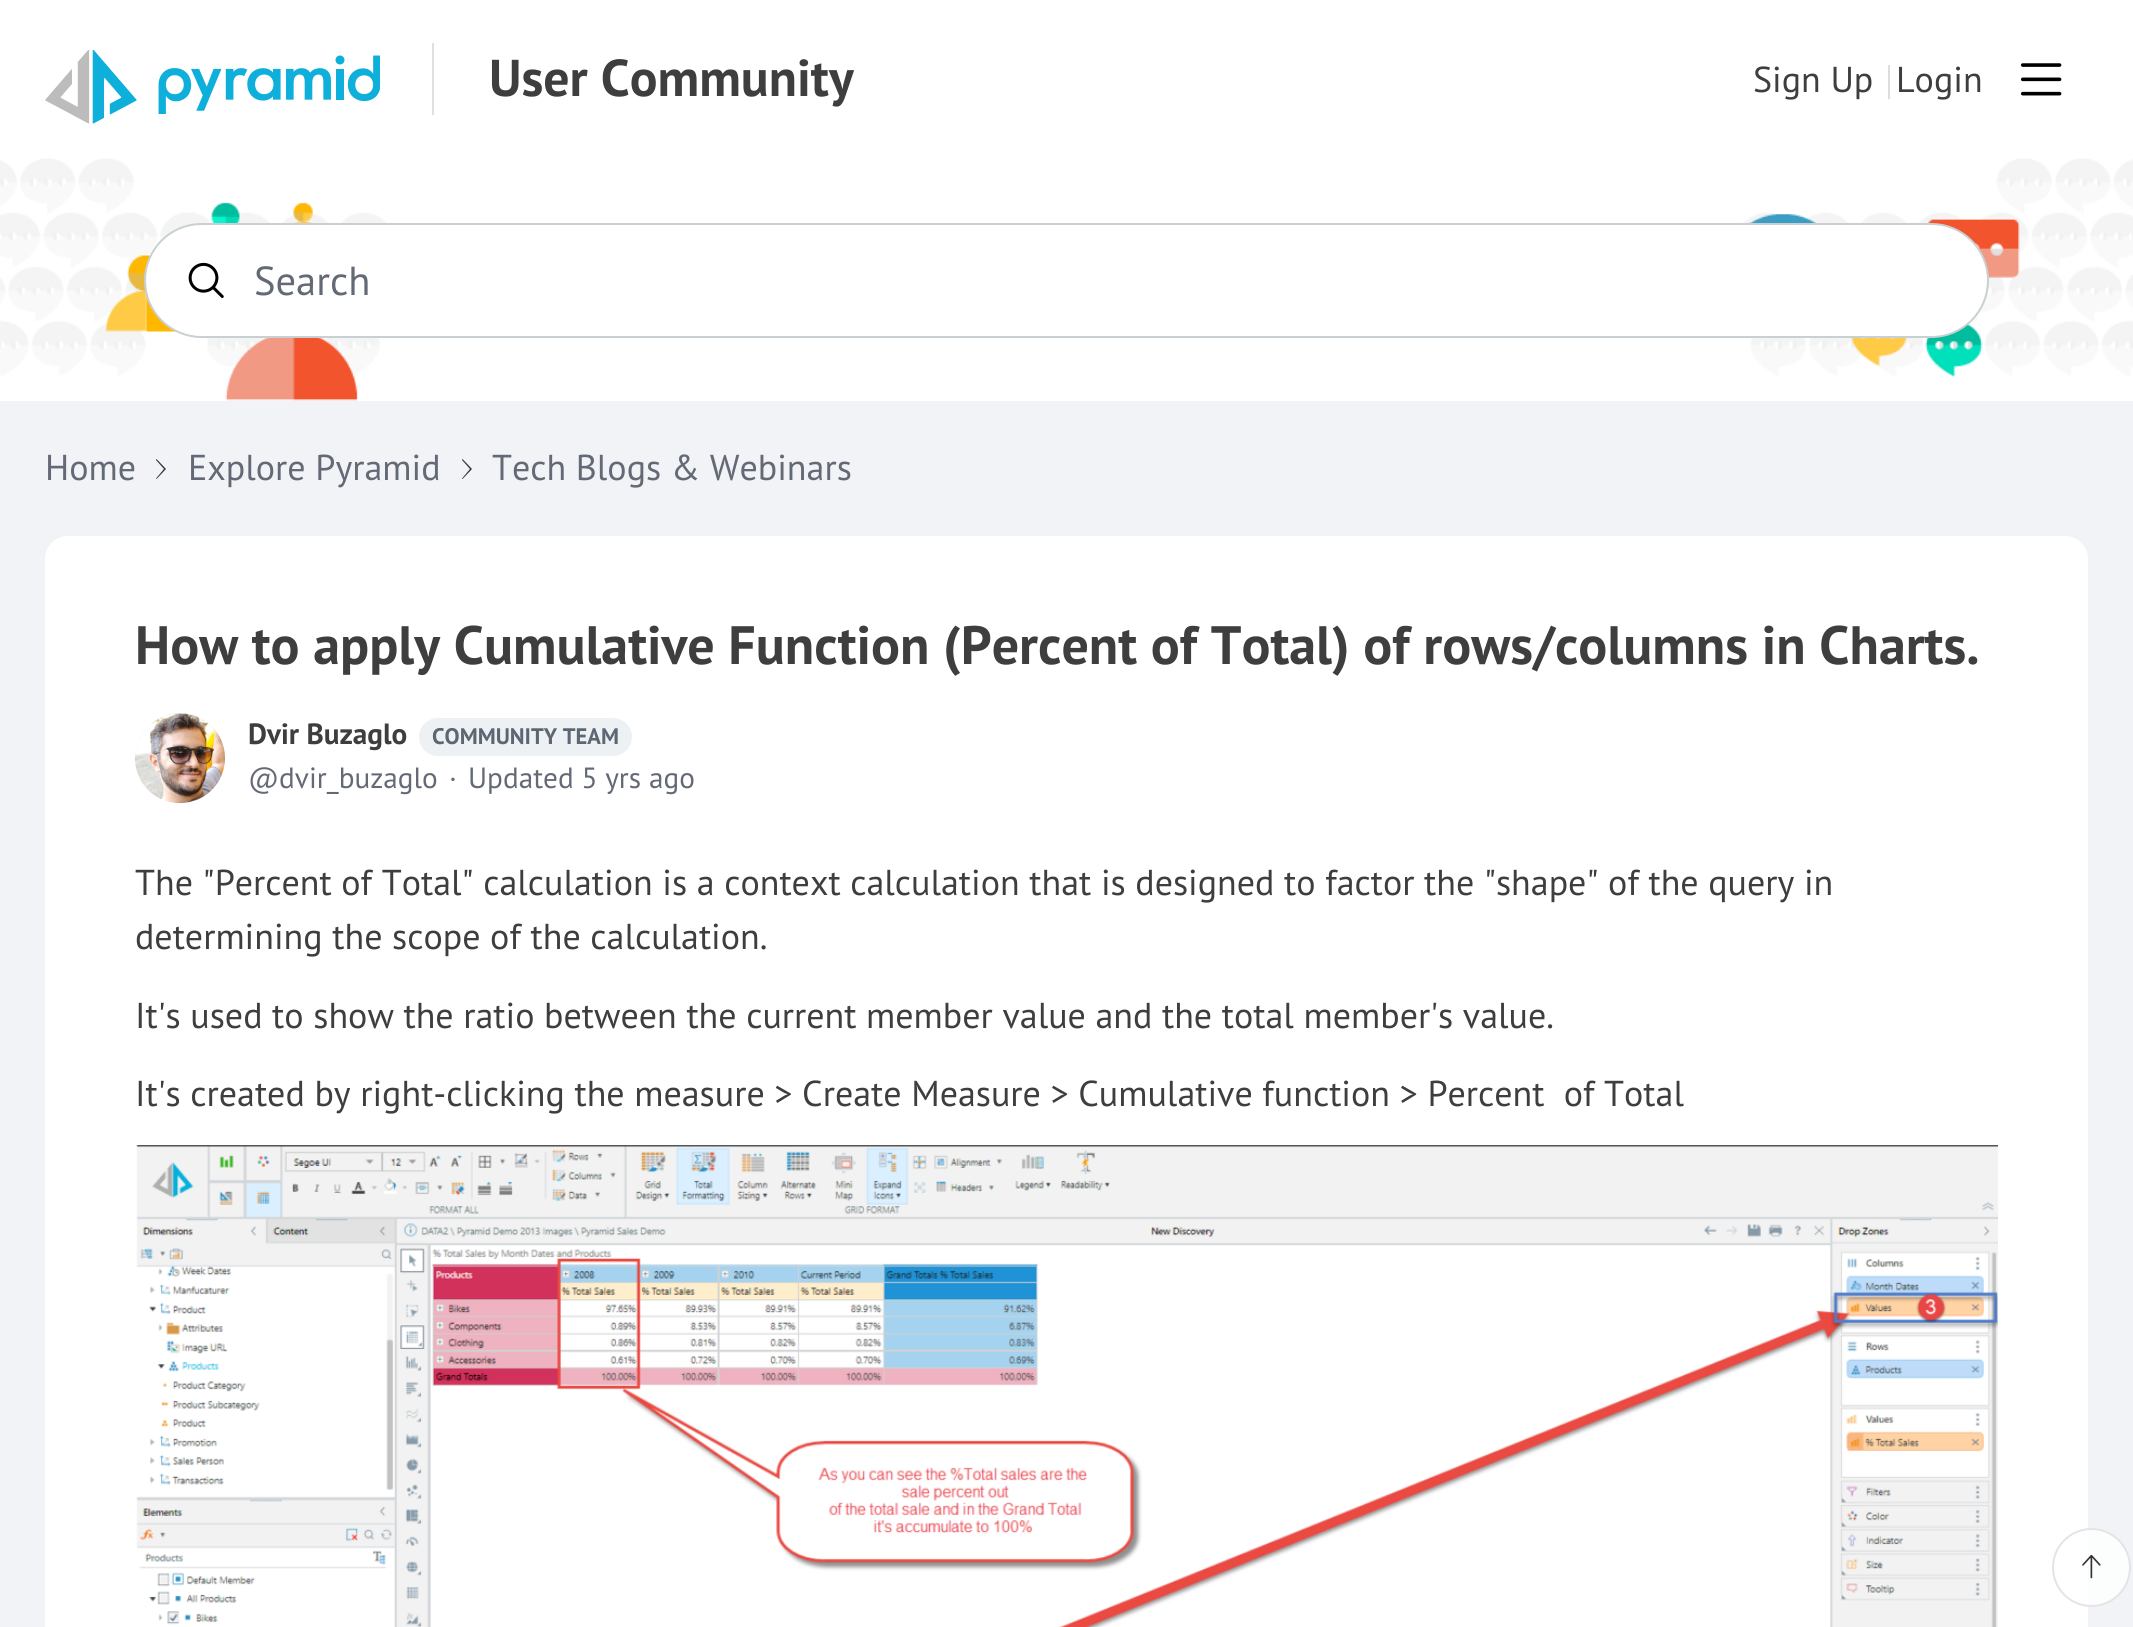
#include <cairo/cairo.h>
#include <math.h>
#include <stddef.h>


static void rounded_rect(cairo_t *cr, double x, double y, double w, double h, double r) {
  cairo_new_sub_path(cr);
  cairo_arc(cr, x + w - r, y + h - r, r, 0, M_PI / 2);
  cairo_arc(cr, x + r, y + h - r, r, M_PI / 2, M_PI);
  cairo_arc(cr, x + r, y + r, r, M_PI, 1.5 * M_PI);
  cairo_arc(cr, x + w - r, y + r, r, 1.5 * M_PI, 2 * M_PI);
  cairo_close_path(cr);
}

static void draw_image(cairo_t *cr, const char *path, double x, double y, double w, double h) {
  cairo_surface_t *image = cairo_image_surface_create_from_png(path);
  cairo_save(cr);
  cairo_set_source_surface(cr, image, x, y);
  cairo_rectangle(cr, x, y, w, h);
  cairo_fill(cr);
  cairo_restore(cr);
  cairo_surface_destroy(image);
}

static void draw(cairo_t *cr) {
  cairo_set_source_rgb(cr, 241 / 255.0, 243 / 255.0, 246 / 255.0);
  cairo_paint(cr);
  cairo_set_source_rgb(cr, 1, 1, 1);
  cairo_rectangle(cr, 0, 0, 2133, 401);
  cairo_fill(cr);
  draw_image(cr, "images/1.png", 45, 50, 335, 74);
  cairo_set_source_rgb(cr, 223 / 255.0, 223 / 255.0, 223 / 255.0);
  cairo_rectangle(cr, 432, 43, 2, 72);
  cairo_fill(cr);
  cairo_set_source_rgb(cr, 221 / 255.0, 221 / 255.0, 221 / 255.0);
  cairo_rectangle(cr, 1888, 65, 2, 34);
  cairo_fill(cr);
  draw_image(cr, "images/2.png", 2021, 63, 41, 33);
  draw_image(cr, "images/3.png", 0, 158, 427, 243);
  draw_image(cr, "images/4.png", 1706, 158, 427, 220);
  cairo_set_source_rgb(cr, 1, 1, 1);
  rounded_rect(cr, 145, 224, 1843, 113, 56.5);
  cairo_fill_preserve(cr);
  cairo_set_source_rgb(cr, 201 / 255.0, 208 / 255.0, 212 / 255.0);
  cairo_stroke(cr);
  draw_image(cr, "images/5.png", 188, 262, 36, 36);
  cairo_set_source_rgb(cr, 48 / 255.0, 49 / 255.0, 49 / 255.0);
  cairo_new_path(cr);
  cairo_move_to(cr, 156.5, 459);
  cairo_line_to(cr, 156, 460);
  cairo_line_to(cr, 164, 469);
  cairo_line_to(cr, 156, 478.5);
  cairo_line_to(cr, 156.5, 479);
  cairo_line_to(cr, 166, 469);
  cairo_fill(cr);
  cairo_new_path(cr);
  cairo_move_to(cr, 462.5, 459);
  cairo_line_to(cr, 462, 460);
  cairo_line_to(cr, 470, 469);
  cairo_line_to(cr, 462, 478.5);
  cairo_line_to(cr, 462.5, 479);
  cairo_line_to(cr, 472, 469);
  cairo_fill(cr);
  cairo_set_source_rgb(cr, 1, 1, 1);
  rounded_rect(cr, 45, 536, 2043, 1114, 23);
  cairo_fill(cr);
  cairo_set_source_rgb(cr, 239 / 255.0, 239 / 255.0, 239 / 255.0);
  cairo_arc(cr, 180, 758, 45, 0, 2 * M_PI);
  cairo_fill(cr);
  draw_image(cr, "images/6.png", 135, 713, 90, 91);
  cairo_set_source_rgb(cr, 237 / 255.0, 241 / 255.0, 244 / 255.0);
  rounded_rect(cr, 419, 718, 213, 38, 19);
  cairo_fill(cr);
  draw_image(cr, "images/7.png", 136, 1145, 1862, 482);
  cairo_set_source_rgba(cr, 1, 1, 1, 0.8);
  cairo_arc(cr, 2091.5, 1567.5, 39.5, 0, 2 * M_PI);
  cairo_fill(cr);
  draw_image(cr, "images/8.png", 2082, 1555, 19, 24);
  cairo_arc(cr, 2091.5, 1567.5, 38.5, 0, 2 * M_PI);
  cairo_set_source_rgba(cr, 221 / 255.0, 221 / 255.0, 221 / 255.0, 0.8);
  cairo_stroke(cr);
  cairo_select_font_face(cr, "PT Sans", CAIRO_FONT_SLANT_NORMAL, CAIRO_FONT_WEIGHT_BOLD);
  cairo_set_font_size(cr, 51.75);
  cairo_set_source_rgb(cr, 62 / 255.0, 62 / 255.0, 62 / 255.0);
  cairo_move_to(cr, 489, 96);
  cairo_show_text(cr, "User Community");
  cairo_select_font_face(cr, "PT Sans", CAIRO_FONT_SLANT_NORMAL, CAIRO_FONT_WEIGHT_NORMAL);
  cairo_set_font_size(cr, 36);
  cairo_move_to(cr, 1753, 92);
  cairo_show_text(cr, "Sign Up");
  cairo_move_to(cr, 1896, 92);
  cairo_show_text(cr, "Login");
  cairo_set_font_size(cr, 40.5);
  cairo_set_source_rgb(cr, 100 / 255.0, 105 / 255.0, 118 / 255.0);
  cairo_move_to(cr, 254, 295);
  cairo_show_text(cr, "Search");
  cairo_set_font_size(cr, 36);
  cairo_move_to(cr, 45, 480);
  cairo_show_text(cr, "Home");
  cairo_move_to(cr, 188, 480);
  cairo_show_text(cr, "Explore Pyramid");
  cairo_move_to(cr, 492, 480);
  cairo_show_text(cr, "Tech Blogs & Webinars");
  cairo_select_font_face(cr, "PT Sans", CAIRO_FONT_SLANT_NORMAL, CAIRO_FONT_WEIGHT_BOLD);
  cairo_set_font_size(cr, 54);
  cairo_set_source_rgb(cr, 62 / 255.0, 62 / 255.0, 62 / 255.0);
  cairo_move_to(cr, 135, 664);
  cairo_show_text(cr, "How to apply Cumulative Function (Percent of Total) of rows/columns in Charts.");
  cairo_set_font_size(cr, 29.25);
  cairo_move_to(cr, 248, 744);
  cairo_show_text(cr, "Dvir Buzaglo");
  cairo_set_font_size(cr, 22.5);
  cairo_set_source_rgb(cr, 91 / 255.0, 103 / 255.0, 114 / 255.0);
  cairo_move_to(cr, 432, 744);
  cairo_show_text(cr, "COMMUNITY TEAM");
  cairo_select_font_face(cr, "PT Sans", CAIRO_FONT_SLANT_NORMAL, CAIRO_FONT_WEIGHT_NORMAL);
  cairo_set_font_size(cr, 29.25);
  cairo_set_source_rgb(cr, 100 / 255.0, 105 / 255.0, 118 / 255.0);
  cairo_move_to(cr, 248, 788);
  cairo_show_text(cr, "@dvir_buzaglo");
  cairo_move_to(cr, 449, 788);
  cairo_show_text(cr, "·");
  cairo_move_to(cr, 468, 788);
  cairo_show_text(cr, "Updated 5 yrs ago");
  cairo_set_font_size(cr, 36);
  cairo_set_source_rgb(cr, 62 / 255.0, 62 / 255.0, 62 / 255.0);
  cairo_move_to(cr, 135, 895);
  cairo_show_text(cr, "The \"Percent of Total\" calculation is a context calculation that is designed to factor the \"shape\" of the query in");
  cairo_move_to(cr, 135, 949);
  cairo_show_text(cr, "determining the scope of the calculation.");
  cairo_move_to(cr, 135, 1028);
  cairo_show_text(cr, "It's used to show the ratio between the current member value and the total member's value.");
  cairo_move_to(cr, 135, 1106);
  cairo_show_text(cr, "It's created by right-clicking the measure > Create Measure > Cumulative function > Percent  of Total");
}

int main(void) {
  cairo_surface_t *surface = cairo_image_surface_create(CAIRO_FORMAT_RGB24, 2133, 1627);
  cairo_t *cr = cairo_create(surface);
  cairo_font_options_t *options = cairo_font_options_create();
  cairo_font_options_set_hint_metrics(options, CAIRO_HINT_METRICS_OFF);
  cairo_font_options_set_hint_style(options, CAIRO_HINT_STYLE_NONE);
  cairo_set_font_options(cr, options);
  cairo_set_miter_limit(cr, 4);
  draw(cr);
  cairo_surface_write_to_png(surface, "out.png");
  cairo_font_options_destroy(options);
  cairo_destroy(cr);
  cairo_surface_destroy(surface);
  return 0;
}
